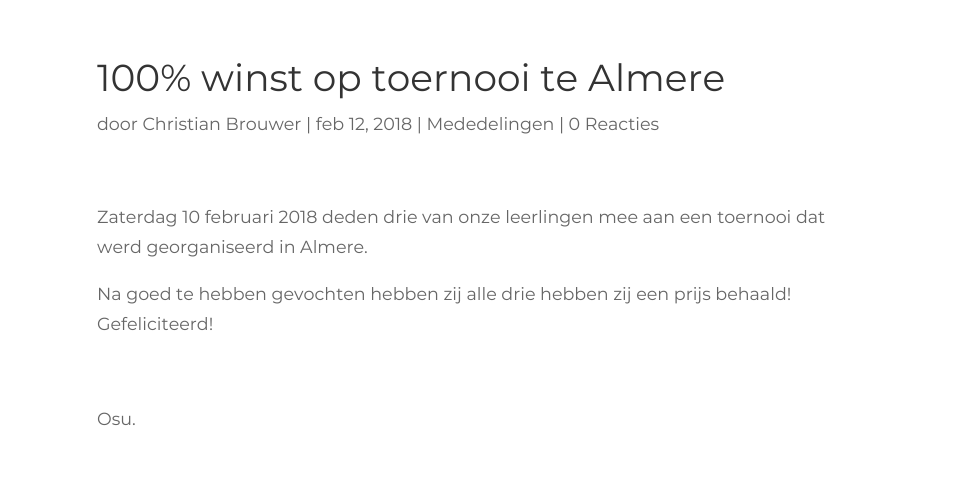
#include <cairo/cairo.h>
#include <math.h>
#include <stddef.h>


static void draw(cairo_t *cr) {
  cairo_set_source_rgb(cr, 1, 1, 1);
  cairo_paint(cr);
  cairo_select_font_face(cr, "Montserrat", CAIRO_FONT_SLANT_NORMAL, CAIRO_FONT_WEIGHT_NORMAL);
  cairo_set_font_size(cr, 37.5);
  cairo_set_source_rgb(cr, 51 / 255.0, 51 / 255.0, 51 / 255.0);
  cairo_move_to(cr, 97, 91);
  cairo_show_text(cr, "100% winst op toernooi te Almere");
  cairo_set_font_size(cr, 17.5);
  cairo_set_source_rgb(cr, 102 / 255.0, 102 / 255.0, 102 / 255.0);
  cairo_move_to(cr, 97, 130);
  cairo_show_text(cr, "door Christian Brouwer | feb 12, 2018 | Mededelingen | 0 Reacties");
  cairo_move_to(cr, 97, 223);
  cairo_show_text(cr, "Zaterdag 10 februari 2018 deden drie van onze leerlingen mee aan een toernooi dat");
  cairo_move_to(cr, 97, 253);
  cairo_show_text(cr, "werd georganiseerd in Almere.");
  cairo_move_to(cr, 97, 300);
  cairo_show_text(cr, "Na goed te hebben gevochten hebben zij alle drie hebben zij een prijs behaald!");
  cairo_move_to(cr, 97, 330);
  cairo_show_text(cr, "Gefeliciteerd!");
  cairo_move_to(cr, 97, 425);
  cairo_show_text(cr, "Osu.");
}

int main(void) {
  cairo_surface_t *surface = cairo_image_surface_create(CAIRO_FORMAT_RGB24, 969, 499);
  cairo_t *cr = cairo_create(surface);
  cairo_font_options_t *options = cairo_font_options_create();
  cairo_font_options_set_hint_metrics(options, CAIRO_HINT_METRICS_OFF);
  cairo_font_options_set_hint_style(options, CAIRO_HINT_STYLE_NONE);
  cairo_set_font_options(cr, options);
  cairo_set_miter_limit(cr, 4);
  draw(cr);
  cairo_surface_write_to_png(surface, "out.png");
  cairo_font_options_destroy(options);
  cairo_destroy(cr);
  cairo_surface_destroy(surface);
  return 0;
}
